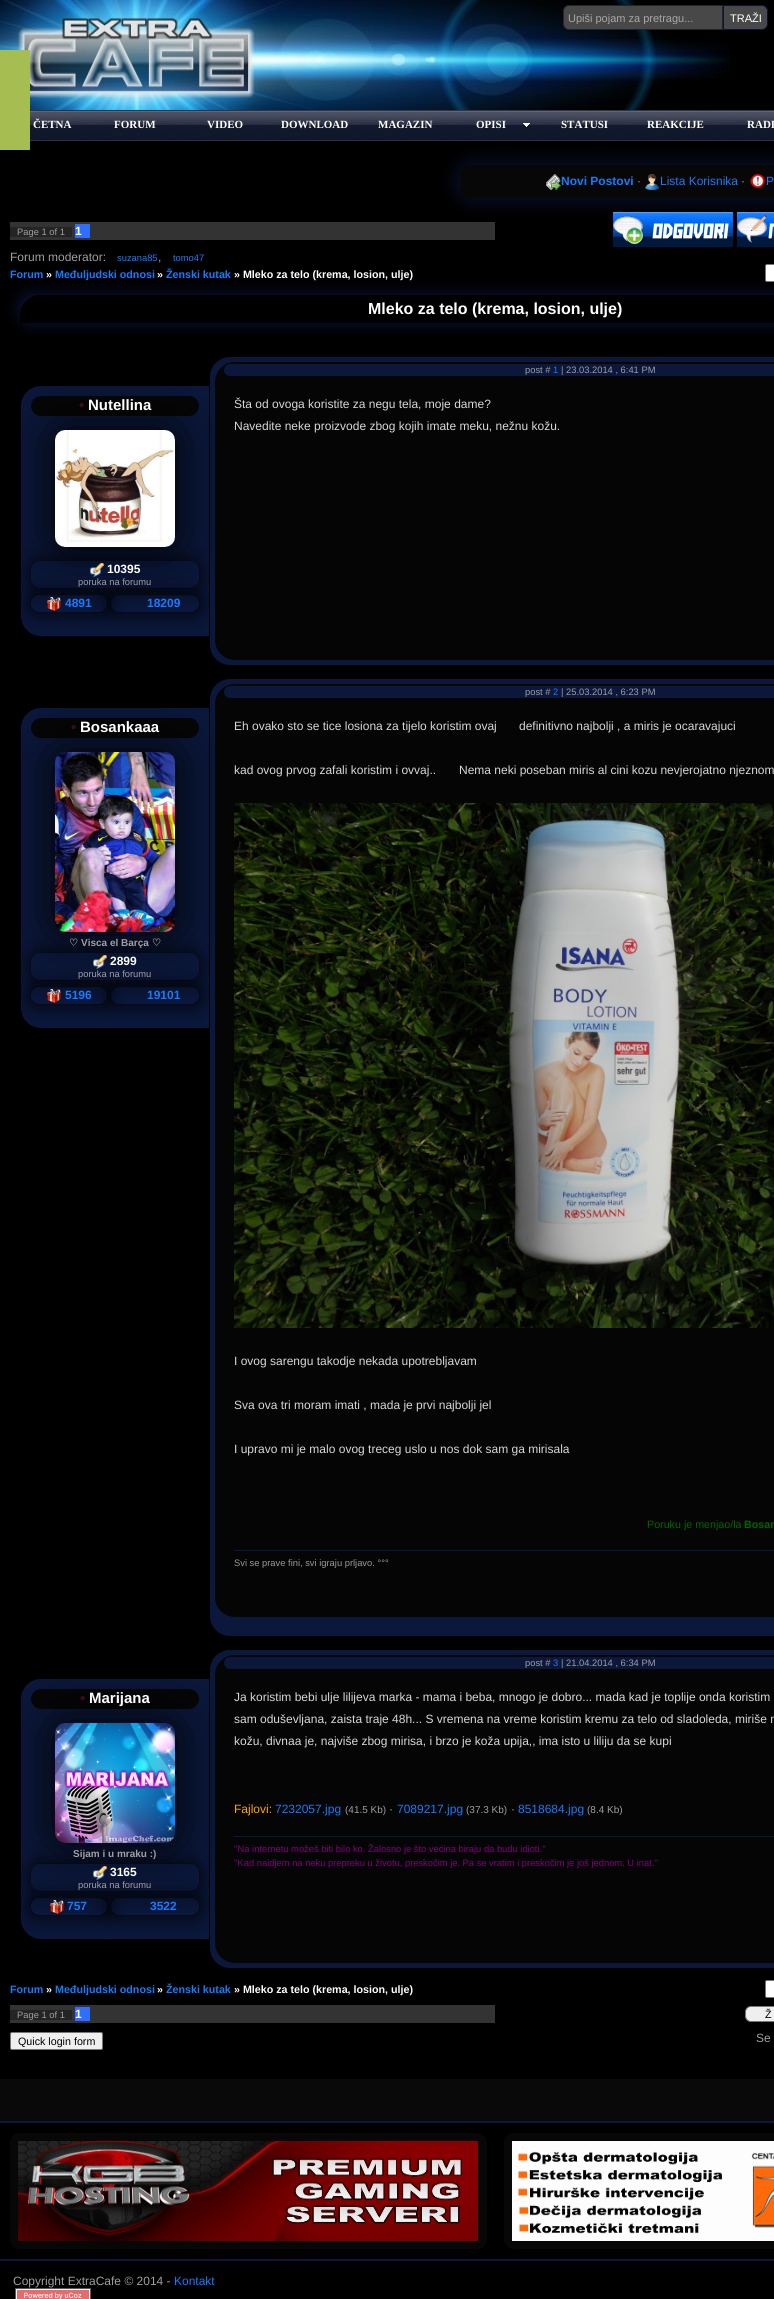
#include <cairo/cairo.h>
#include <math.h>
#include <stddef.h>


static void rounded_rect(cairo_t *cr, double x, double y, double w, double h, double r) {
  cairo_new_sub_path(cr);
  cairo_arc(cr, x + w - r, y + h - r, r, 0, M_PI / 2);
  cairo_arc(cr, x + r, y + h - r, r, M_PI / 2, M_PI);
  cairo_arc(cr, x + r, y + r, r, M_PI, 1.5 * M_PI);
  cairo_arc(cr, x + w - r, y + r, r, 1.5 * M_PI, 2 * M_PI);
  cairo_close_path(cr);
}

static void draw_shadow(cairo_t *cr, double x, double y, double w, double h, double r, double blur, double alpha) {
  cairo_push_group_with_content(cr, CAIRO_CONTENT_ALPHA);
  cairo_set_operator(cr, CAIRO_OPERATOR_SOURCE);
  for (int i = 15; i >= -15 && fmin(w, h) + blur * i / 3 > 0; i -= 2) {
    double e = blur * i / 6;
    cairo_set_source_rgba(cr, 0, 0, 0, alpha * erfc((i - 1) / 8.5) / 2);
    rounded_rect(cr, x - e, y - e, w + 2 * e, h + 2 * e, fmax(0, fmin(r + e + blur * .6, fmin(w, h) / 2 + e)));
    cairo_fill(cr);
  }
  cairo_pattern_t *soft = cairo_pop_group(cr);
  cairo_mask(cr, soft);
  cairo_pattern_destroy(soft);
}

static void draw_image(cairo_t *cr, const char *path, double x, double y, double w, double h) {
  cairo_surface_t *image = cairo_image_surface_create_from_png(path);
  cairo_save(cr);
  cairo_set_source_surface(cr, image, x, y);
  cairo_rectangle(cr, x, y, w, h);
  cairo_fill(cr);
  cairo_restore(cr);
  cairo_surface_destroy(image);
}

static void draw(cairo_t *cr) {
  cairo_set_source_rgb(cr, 9 / 255.0, 9 / 255.0, 9 / 255.0);
  cairo_paint(cr);
  draw_image(cr, "images/1.png", 0, 0, 774, 110);
  cairo_set_source_rgb(cr, 0, 0, 0);
  cairo_rectangle(cr, 0, 141, 774, 1938);
  cairo_fill(cr);
  cairo_set_source_rgb(cr, 165 / 255.0, 189 / 255.0, 81 / 255.0);
  cairo_rectangle(cr, 0, 50, 30, 100);
  cairo_fill(cr);
  cairo_set_source_rgb(cr, 72 / 255.0, 72 / 255.0, 72 / 255.0);
  cairo_new_path(cr);
  cairo_move_to(cr, 569, 5.5);
  cairo_line_to(cr, 722.5, 5.5);
  cairo_line_to(cr, 722.5, 29.5);
  cairo_line_to(cr, 569, 29.5);
  cairo_curve_to(cr, 566, 29.5, 563.5, 27, 563.5, 24);
  cairo_line_to(cr, 563.5, 11);
  cairo_curve_to(cr, 563.5, 8, 566, 5.5, 569, 5.5);
  cairo_close_path(cr);
  cairo_fill_preserve(cr);
  cairo_set_source_rgb(cr, 37 / 255.0, 37 / 255.0, 37 / 255.0);
  cairo_set_line_width(cr, 1);
  cairo_stroke(cr);
  cairo_set_source_rgb(cr, 72 / 255.0, 72 / 255.0, 72 / 255.0);
  cairo_new_path(cr);
  cairo_move_to(cr, 723.5, 5.5);
  cairo_line_to(cr, 762, 5.5);
  cairo_curve_to(cr, 765, 5.5, 767.5, 8, 767.5, 11);
  cairo_line_to(cr, 767.5, 24);
  cairo_curve_to(cr, 767.5, 27, 765, 29.5, 762, 29.5);
  cairo_line_to(cr, 723.5, 29.5);
  cairo_close_path(cr);
  cairo_fill_preserve(cr);
  cairo_set_source_rgb(cr, 12 / 255.0, 18 / 255.0, 59 / 255.0);
  cairo_stroke(cr);
  draw_image(cr, "images/2.png", 30, 110, 60, 31);
  draw_image(cr, "images/3.png", 90, 110, 90, 31);
  draw_image(cr, "images/3.png", 180, 110, 90, 31);
  draw_image(cr, "images/3.png", 270, 110, 90, 31);
  cairo_set_source_rgb(cr, 11 / 255.0, 23 / 255.0, 59 / 255.0);
  draw_shadow(cr, 460, 165, 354, 33, 10, 10, 1);
  draw_image(cr, "images/3.png", 360, 110, 90, 31);
  draw_image(cr, "images/3.png", 450, 110, 90, 31);
  draw_image(cr, "images/4.png", 523, 123, 7, 4);
  draw_image(cr, "images/3.png", 540, 110, 90, 31);
  draw_image(cr, "images/3.png", 630, 110, 90, 31);
  draw_image(cr, "images/5.png", 720, 110, 54, 31);
  cairo_set_source_rgb(cr, 7 / 255.0, 7 / 255.0, 7 / 255.0);
  rounded_rect(cr, 460, 165, 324, 33, 10);
  cairo_fill(cr);
  draw_image(cr, "images/6.png", 546, 174, 15, 16);
  draw_image(cr, "images/7.png", 645, 174, 14, 16);
  draw_image(cr, "images/8.png", 750, 174, 16, 15);
  cairo_set_source_rgb(cr, 51 / 255.0, 51 / 255.0, 51 / 255.0);
  cairo_rectangle(cr, 10, 222, 485, 18);
  cairo_fill(cr);
  cairo_set_source_rgb(cr, 36 / 255.0, 36 / 255.0, 36 / 255.0);
  cairo_rectangle(cr, 10, 227, 62, 10);
  cairo_fill(cr);
  cairo_set_source_rgb(cr, 48 / 255.0, 110 / 255.0, 1);
  cairo_rectangle(cr, 75, 224, 15, 14);
  cairo_fill(cr);
  draw_image(cr, "images/9.png", 613, 212, 120, 35);
  draw_image(cr, "images/10.png", 737, 212, 37, 35);
  cairo_set_source_rgb(cr, 11 / 255.0, 23 / 255.0, 59 / 255.0);
  draw_shadow(cr, 20, 295, 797, 28, 20, 7.5, 1);
  cairo_set_source_rgb(cr, 1, 1, 1);
  rounded_rect(cr, 765.5, 264.5, 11, 17, 1.5);
  cairo_fill_preserve(cr);
  cairo_set_source_rgb(cr, 118 / 255.0, 118 / 255.0, 118 / 255.0);
  cairo_stroke(cr);
  cairo_set_source_rgb(cr, 0, 0, 0);
  cairo_new_path(cr);
  cairo_move_to(cr, 40, 295);
  cairo_line_to(cr, 774, 295);
  cairo_curve_to(cr, 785, 295, 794, 304, 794, 315);
  cairo_line_to(cr, 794, 323);
  cairo_line_to(cr, 20, 323);
  cairo_line_to(cr, 20, 315);
  cairo_curve_to(cr, 20, 304, 29, 295, 40, 295);
  cairo_close_path(cr);
  cairo_fill(cr);
  cairo_set_source_rgb(cr, 11 / 255.0, 23 / 255.0, 59 / 255.0);
  cairo_new_path(cr);
  cairo_move_to(cr, 41, 386);
  cairo_line_to(cr, 209, 386);
  cairo_line_to(cr, 209, 636);
  cairo_line_to(cr, 41, 636);
  cairo_curve_to(cr, 30, 636, 21, 627, 21, 616);
  cairo_line_to(cr, 21, 406);
  cairo_curve_to(cr, 21, 395, 30, 386, 41, 386);
  cairo_close_path(cr);
  cairo_fill(cr);
  cairo_set_source_rgb(cr, 5 / 255.0, 5 / 255.0, 5 / 255.0);
  rounded_rect(cr, 31, 396, 168, 20, 10);
  cairo_fill(cr);
  cairo_save(cr);
  cairo_set_fill_rule(cr, CAIRO_FILL_RULE_EVEN_ODD);
  cairo_new_path(cr);
  cairo_move_to(cr, 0, 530);
  cairo_line_to(cr, 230, 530);
  cairo_line_to(cr, 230, 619);
  cairo_line_to(cr, 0, 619);
  cairo_close_path(cr);
  cairo_move_to(cr, 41, 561);
  cairo_line_to(cr, 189, 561);
  cairo_curve_to(cr, 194.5, 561, 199, 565.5, 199, 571);
  cairo_line_to(cr, 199, 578);
  cairo_curve_to(cr, 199, 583.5, 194.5, 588, 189, 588);
  cairo_line_to(cr, 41, 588);
  cairo_curve_to(cr, 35.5, 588, 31, 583.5, 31, 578);
  cairo_line_to(cr, 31, 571);
  cairo_curve_to(cr, 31, 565.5, 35.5, 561, 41, 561);
  cairo_close_path(cr);
  cairo_clip(cr);
  cairo_set_source_rgb(cr, 0, 0, 0);
  draw_shadow(cr, 31, 561, 168, 27, 10, 10, 1);
  cairo_restore(cr);
  cairo_save(cr);
  cairo_set_fill_rule(cr, CAIRO_FILL_RULE_EVEN_ODD);
  cairo_new_path(cr);
  cairo_move_to(cr, 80, 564);
  cairo_line_to(cr, 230, 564);
  cairo_line_to(cr, 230, 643);
  cairo_line_to(cr, 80, 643);
  cairo_close_path(cr);
  cairo_move_to(cr, 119.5, 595);
  cairo_line_to(cr, 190.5, 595);
  cairo_curve_to(cr, 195, 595, 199, 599, 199, 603.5);
  cairo_curve_to(cr, 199, 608, 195, 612, 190.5, 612);
  cairo_line_to(cr, 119.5, 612);
  cairo_curve_to(cr, 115, 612, 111, 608, 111, 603.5);
  cairo_curve_to(cr, 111, 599, 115, 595, 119.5, 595);
  cairo_close_path(cr);
  cairo_clip(cr);
  cairo_set_source_rgb(cr, 0, 0, 0);
  draw_shadow(cr, 111, 595, 88, 17, 8.5, 10, 1);
  cairo_restore(cr);
  cairo_set_source_rgb(cr, 11 / 255.0, 23 / 255.0, 59 / 255.0);
  rounded_rect(cr, 210, 357, 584, 308, 20);
  cairo_fill(cr);
  cairo_set_source_rgb(cr, 5 / 255.0, 5 / 255.0, 5 / 255.0);
  rounded_rect(cr, 215, 362, 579, 298, 20);
  cairo_fill(cr);
  cairo_set_source_rgb(cr, 11 / 255.0, 23 / 255.0, 59 / 255.0);
  rounded_rect(cr, 224, 364, 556, 12, 6);
  cairo_fill(cr);
  cairo_set_source_rgb(cr, 0, 0, 0);
  draw_shadow(cr, 55, 430, 120, 117, 10, 25, 1);
  draw_image(cr, "images/11.png", 55, 430, 120, 117);
  cairo_save(cr);
  cairo_set_fill_rule(cr, CAIRO_FILL_RULE_EVEN_ODD);
  cairo_new_path(cr);
  cairo_move_to(cr, 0, 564);
  cairo_line_to(cr, 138, 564);
  cairo_line_to(cr, 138, 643);
  cairo_line_to(cr, 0, 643);
  cairo_close_path(cr);
  cairo_move_to(cr, 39.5, 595);
  cairo_line_to(cr, 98.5, 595);
  cairo_curve_to(cr, 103, 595, 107, 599, 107, 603.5);
  cairo_curve_to(cr, 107, 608, 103, 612, 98.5, 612);
  cairo_line_to(cr, 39.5, 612);
  cairo_curve_to(cr, 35, 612, 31, 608, 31, 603.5);
  cairo_curve_to(cr, 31, 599, 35, 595, 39.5, 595);
  cairo_close_path(cr);
  cairo_clip(cr);
  draw_shadow(cr, 31, 595, 76, 17, 8.5, 10, 1);
  cairo_restore(cr);
  draw_image(cr, "images/12.png", 90, 563, 14, 14);
  draw_image(cr, "images/13.png", 47, 597, 14, 14);
  cairo_set_source_rgb(cr, 11 / 255.0, 23 / 255.0, 59 / 255.0);
  cairo_new_path(cr);
  cairo_move_to(cr, 41, 708);
  cairo_line_to(cr, 209, 708);
  cairo_line_to(cr, 209, 1028);
  cairo_line_to(cr, 41, 1028);
  cairo_curve_to(cr, 30, 1028, 21, 1019, 21, 1008);
  cairo_line_to(cr, 21, 728);
  cairo_curve_to(cr, 21, 717, 30, 708, 41, 708);
  cairo_close_path(cr);
  cairo_fill(cr);
  cairo_set_source_rgb(cr, 5 / 255.0, 5 / 255.0, 5 / 255.0);
  rounded_rect(cr, 31, 718, 168, 20, 10);
  cairo_fill(cr);
  cairo_save(cr);
  cairo_set_fill_rule(cr, CAIRO_FILL_RULE_EVEN_ODD);
  cairo_new_path(cr);
  cairo_move_to(cr, 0, 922);
  cairo_line_to(cr, 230, 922);
  cairo_line_to(cr, 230, 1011);
  cairo_line_to(cr, 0, 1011);
  cairo_close_path(cr);
  cairo_move_to(cr, 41, 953);
  cairo_line_to(cr, 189, 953);
  cairo_curve_to(cr, 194.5, 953, 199, 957.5, 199, 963);
  cairo_line_to(cr, 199, 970);
  cairo_curve_to(cr, 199, 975.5, 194.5, 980, 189, 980);
  cairo_line_to(cr, 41, 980);
  cairo_curve_to(cr, 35.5, 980, 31, 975.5, 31, 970);
  cairo_line_to(cr, 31, 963);
  cairo_curve_to(cr, 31, 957.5, 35.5, 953, 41, 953);
  cairo_close_path(cr);
  cairo_clip(cr);
  cairo_set_source_rgb(cr, 0, 0, 0);
  draw_shadow(cr, 31, 953, 168, 27, 10, 10, 1);
  cairo_restore(cr);
  cairo_save(cr);
  cairo_set_fill_rule(cr, CAIRO_FILL_RULE_EVEN_ODD);
  cairo_new_path(cr);
  cairo_move_to(cr, 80, 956);
  cairo_line_to(cr, 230, 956);
  cairo_line_to(cr, 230, 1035);
  cairo_line_to(cr, 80, 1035);
  cairo_close_path(cr);
  cairo_move_to(cr, 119.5, 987);
  cairo_line_to(cr, 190.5, 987);
  cairo_curve_to(cr, 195, 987, 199, 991, 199, 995.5);
  cairo_curve_to(cr, 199, 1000, 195, 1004, 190.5, 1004);
  cairo_line_to(cr, 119.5, 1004);
  cairo_curve_to(cr, 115, 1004, 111, 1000, 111, 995.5);
  cairo_curve_to(cr, 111, 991, 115, 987, 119.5, 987);
  cairo_close_path(cr);
  cairo_clip(cr);
  cairo_set_source_rgb(cr, 0, 0, 0);
  draw_shadow(cr, 111, 987, 88, 17, 8.5, 10, 1);
  cairo_restore(cr);
  cairo_set_source_rgb(cr, 11 / 255.0, 23 / 255.0, 59 / 255.0);
  rounded_rect(cr, 210, 679, 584, 957, 20);
  cairo_fill(cr);
  cairo_set_source_rgb(cr, 5 / 255.0, 5 / 255.0, 5 / 255.0);
  rounded_rect(cr, 215, 684, 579, 933, 20);
  cairo_fill(cr);
  cairo_set_source_rgb(cr, 11 / 255.0, 23 / 255.0, 59 / 255.0);
  rounded_rect(cr, 224, 686, 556, 12, 6);
  cairo_fill(cr);
  cairo_set_source_rgb(cr, 0, 0, 0);
  draw_shadow(cr, 55, 752, 120, 180, 10, 25, 1);
  draw_image(cr, "images/14.png", 55, 752, 120, 180);
  cairo_save(cr);
  cairo_set_fill_rule(cr, CAIRO_FILL_RULE_EVEN_ODD);
  cairo_new_path(cr);
  cairo_move_to(cr, 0, 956);
  cairo_line_to(cr, 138, 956);
  cairo_line_to(cr, 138, 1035);
  cairo_line_to(cr, 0, 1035);
  cairo_close_path(cr);
  cairo_move_to(cr, 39.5, 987);
  cairo_line_to(cr, 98.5, 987);
  cairo_curve_to(cr, 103, 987, 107, 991, 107, 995.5);
  cairo_curve_to(cr, 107, 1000, 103, 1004, 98.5, 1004);
  cairo_line_to(cr, 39.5, 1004);
  cairo_curve_to(cr, 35, 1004, 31, 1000, 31, 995.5);
  cairo_curve_to(cr, 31, 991, 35, 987, 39.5, 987);
  cairo_close_path(cr);
  cairo_clip(cr);
  draw_shadow(cr, 31, 987, 76, 17, 8.5, 10, 1);
  cairo_restore(cr);
  draw_image(cr, "images/15.png", 93, 955, 14, 14);
  draw_image(cr, "images/16.png", 47, 989, 14, 14);
  draw_image(cr, "images/17.png", 234, 803, 540, 525);
  cairo_set_source_rgb(cr, 11 / 255.0, 23 / 255.0, 59 / 255.0);
  cairo_rectangle(cr, 234, 1550, 540, 1);
  cairo_fill(cr);
  cairo_new_path(cr);
  cairo_move_to(cr, 41, 1679);
  cairo_line_to(cr, 209, 1679);
  cairo_line_to(cr, 209, 1939);
  cairo_line_to(cr, 41, 1939);
  cairo_curve_to(cr, 30, 1939, 21, 1930, 21, 1919);
  cairo_line_to(cr, 21, 1699);
  cairo_curve_to(cr, 21, 1688, 30, 1679, 41, 1679);
  cairo_close_path(cr);
  cairo_fill(cr);
  cairo_set_source_rgb(cr, 5 / 255.0, 5 / 255.0, 5 / 255.0);
  rounded_rect(cr, 31, 1689, 168, 20, 10);
  cairo_fill(cr);
  cairo_save(cr);
  cairo_set_fill_rule(cr, CAIRO_FILL_RULE_EVEN_ODD);
  cairo_new_path(cr);
  cairo_move_to(cr, 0, 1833);
  cairo_line_to(cr, 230, 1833);
  cairo_line_to(cr, 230, 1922);
  cairo_line_to(cr, 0, 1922);
  cairo_close_path(cr);
  cairo_move_to(cr, 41, 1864);
  cairo_line_to(cr, 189, 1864);
  cairo_curve_to(cr, 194.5, 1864, 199, 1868.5, 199, 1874);
  cairo_line_to(cr, 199, 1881);
  cairo_curve_to(cr, 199, 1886.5, 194.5, 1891, 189, 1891);
  cairo_line_to(cr, 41, 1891);
  cairo_curve_to(cr, 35.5, 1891, 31, 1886.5, 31, 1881);
  cairo_line_to(cr, 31, 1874);
  cairo_curve_to(cr, 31, 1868.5, 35.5, 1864, 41, 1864);
  cairo_close_path(cr);
  cairo_clip(cr);
  cairo_set_source_rgb(cr, 0, 0, 0);
  draw_shadow(cr, 31, 1864, 168, 27, 10, 10, 1);
  cairo_restore(cr);
  cairo_save(cr);
  cairo_set_fill_rule(cr, CAIRO_FILL_RULE_EVEN_ODD);
  cairo_new_path(cr);
  cairo_move_to(cr, 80, 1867);
  cairo_line_to(cr, 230, 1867);
  cairo_line_to(cr, 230, 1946);
  cairo_line_to(cr, 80, 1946);
  cairo_close_path(cr);
  cairo_move_to(cr, 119.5, 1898);
  cairo_line_to(cr, 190.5, 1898);
  cairo_curve_to(cr, 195, 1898, 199, 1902, 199, 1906.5);
  cairo_curve_to(cr, 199, 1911, 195, 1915, 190.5, 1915);
  cairo_line_to(cr, 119.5, 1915);
  cairo_curve_to(cr, 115, 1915, 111, 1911, 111, 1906.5);
  cairo_curve_to(cr, 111, 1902, 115, 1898, 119.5, 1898);
  cairo_close_path(cr);
  cairo_clip(cr);
  cairo_set_source_rgb(cr, 0, 0, 0);
  draw_shadow(cr, 111, 1898, 88, 17, 8.5, 10, 1);
  cairo_restore(cr);
  cairo_set_source_rgb(cr, 11 / 255.0, 23 / 255.0, 59 / 255.0);
  rounded_rect(cr, 210, 1650, 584, 318, 20);
  cairo_fill(cr);
  cairo_set_source_rgb(cr, 5 / 255.0, 5 / 255.0, 5 / 255.0);
  rounded_rect(cr, 215, 1655, 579, 308, 20);
  cairo_fill(cr);
  cairo_set_source_rgb(cr, 11 / 255.0, 23 / 255.0, 59 / 255.0);
  rounded_rect(cr, 224, 1657, 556, 12, 6);
  cairo_fill(cr);
  cairo_set_source_rgb(cr, 0, 0, 0);
  draw_shadow(cr, 55, 1723, 120, 120, 10, 25, 1);
  draw_image(cr, "images/18.png", 55, 1723, 120, 120);
  cairo_save(cr);
  cairo_set_fill_rule(cr, CAIRO_FILL_RULE_EVEN_ODD);
  cairo_new_path(cr);
  cairo_move_to(cr, 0, 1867);
  cairo_line_to(cr, 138, 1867);
  cairo_line_to(cr, 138, 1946);
  cairo_line_to(cr, 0, 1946);
  cairo_close_path(cr);
  cairo_move_to(cr, 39.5, 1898);
  cairo_line_to(cr, 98.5, 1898);
  cairo_curve_to(cr, 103, 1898, 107, 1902, 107, 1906.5);
  cairo_curve_to(cr, 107, 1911, 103, 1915, 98.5, 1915);
  cairo_line_to(cr, 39.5, 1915);
  cairo_curve_to(cr, 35, 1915, 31, 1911, 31, 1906.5);
  cairo_curve_to(cr, 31, 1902, 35, 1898, 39.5, 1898);
  cairo_close_path(cr);
  cairo_clip(cr);
  draw_shadow(cr, 31, 1898, 76, 17, 8.5, 10, 1);
  cairo_restore(cr);
  draw_image(cr, "images/15.png", 93, 1866, 14, 14);
  draw_image(cr, "images/19.png", 50, 1900, 14, 14);
  cairo_set_source_rgb(cr, 11 / 255.0, 23 / 255.0, 59 / 255.0);
  cairo_rectangle(cr, 234, 1836, 540, 1);
  cairo_fill(cr);
  cairo_set_source_rgb(cr, 1, 1, 1);
  rounded_rect(cr, 765.5, 1980.5, 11, 17, 1.5);
  cairo_fill_preserve(cr);
  cairo_set_source_rgb(cr, 118 / 255.0, 118 / 255.0, 118 / 255.0);
  cairo_stroke(cr);
  cairo_set_source_rgb(cr, 51 / 255.0, 51 / 255.0, 51 / 255.0);
  cairo_rectangle(cr, 10, 2005, 485, 18);
  cairo_fill(cr);
  cairo_set_source_rgb(cr, 36 / 255.0, 36 / 255.0, 36 / 255.0);
  cairo_rectangle(cr, 10, 2010, 62, 10);
  cairo_fill(cr);
  cairo_set_source_rgb(cr, 48 / 255.0, 110 / 255.0, 1);
  cairo_rectangle(cr, 75, 2007, 15, 14);
  cairo_fill(cr);
  cairo_set_source_rgb(cr, 239 / 255.0, 239 / 255.0, 239 / 255.0);
  rounded_rect(cr, 745.5, 2006.5, 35, 15, 5.5);
  cairo_fill_preserve(cr);
  cairo_set_source_rgb(cr, 118 / 255.0, 118 / 255.0, 118 / 255.0);
  cairo_stroke(cr);
  cairo_set_source_rgb(cr, 239 / 255.0, 239 / 255.0, 239 / 255.0);
  rounded_rect(cr, 10.5, 2032.5, 92, 17, 1.5);
  cairo_fill_preserve(cr);
  cairo_set_source_rgb(cr, 118 / 255.0, 118 / 255.0, 118 / 255.0);
  cairo_stroke(cr);
  cairo_set_source_rgb(cr, 0, 0, 0);
  cairo_rectangle(cr, 0, 2123, 774, 136);
  cairo_fill(cr);
  cairo_set_source_rgb(cr, 11 / 255.0, 23 / 255.0, 59 / 255.0);
  cairo_rectangle(cr, 0, 2121, 774, 2);
  cairo_fill(cr);
  cairo_set_source_rgb(cr, 7 / 255.0, 7 / 255.0, 7 / 255.0);
  rounded_rect(cr, 10, 2133, 477, 116, 10);
  cairo_fill(cr);
  draw_image(cr, "images/20.png", 18, 2141, 460, 100);
  rounded_rect(cr, 504, 2133, 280, 116, 10);
  cairo_fill(cr);
  draw_image(cr, "images/21.png", 512, 2141, 262, 100);
  cairo_set_source_rgb(cr, 0, 0, 0);
  cairo_rectangle(cr, 0, 2261, 774, 38);
  cairo_fill(cr);
  cairo_set_source_rgb(cr, 11 / 255.0, 23 / 255.0, 59 / 255.0);
  cairo_rectangle(cr, 0, 2259, 774, 2);
  cairo_fill(cr);
  draw_image(cr, "images/22.png", 15, 2288, 76, 11);
  cairo_save(cr);
  cairo_rectangle(cr, 568, 12, 150, 12);
  cairo_clip(cr);
  cairo_select_font_face(cr, "Liberation Sans", CAIRO_FONT_SLANT_NORMAL, CAIRO_FONT_WEIGHT_NORMAL);
  cairo_set_font_size(cr, 11);
  cairo_set_source_rgb(cr, 167 / 255.0, 167 / 255.0, 167 / 255.0);
  cairo_move_to(cr, 568, 22);
  cairo_show_text(cr, "Upiši pojam za pretragu...");
  cairo_restore(cr);
  cairo_select_font_face(cr, "Liberation Sans", CAIRO_FONT_SLANT_NORMAL, CAIRO_FONT_WEIGHT_NORMAL);
  cairo_set_font_size(cr, 11);
  cairo_set_source_rgb(cr, 1, 1, 1);
  cairo_move_to(cr, 730, 22);
  cairo_show_text(cr, "TRAŽI");
  cairo_select_font_face(cr, "Liberation Serif", CAIRO_FONT_SLANT_NORMAL, CAIRO_FONT_WEIGHT_BOLD);
  cairo_move_to(cr, 33, 128);
  cairo_show_text(cr, "ČETNA");
  cairo_move_to(cr, 114, 128);
  cairo_show_text(cr, "FORUM");
  cairo_move_to(cr, 207, 128);
  cairo_show_text(cr, "VIDEO");
  cairo_move_to(cr, 281, 128);
  cairo_show_text(cr, "DOWNLOAD");
  cairo_move_to(cr, 378, 128);
  cairo_show_text(cr, "MAGAZIN");
  cairo_move_to(cr, 476, 128);
  cairo_show_text(cr, "OPISI");
  cairo_move_to(cr, 561, 128);
  cairo_show_text(cr, "STATUSI");
  cairo_move_to(cr, 647, 128);
  cairo_show_text(cr, "REAKCIJE");
  cairo_move_to(cr, 747, 128);
  cairo_show_text(cr, "RADI");
  cairo_select_font_face(cr, "Liberation Sans", CAIRO_FONT_SLANT_NORMAL, CAIRO_FONT_WEIGHT_BOLD);
  cairo_set_font_size(cr, 12);
  cairo_set_source_rgb(cr, 22 / 255.0, 123 / 255.0, 1);
  cairo_move_to(cr, 561, 185);
  cairo_show_text(cr, "Novi Postovi");
  cairo_select_font_face(cr, "Liberation Sans", CAIRO_FONT_SLANT_NORMAL, CAIRO_FONT_WEIGHT_NORMAL);
  cairo_set_source_rgb(cr, 159 / 255.0, 159 / 255.0, 159 / 255.0);
  cairo_move_to(cr, 637, 185);
  cairo_show_text(cr, "·");
  cairo_set_source_rgb(cr, 22 / 255.0, 123 / 255.0, 1);
  cairo_move_to(cr, 660, 185);
  cairo_show_text(cr, "Lista Korisnika");
  cairo_set_source_rgb(cr, 159 / 255.0, 159 / 255.0, 159 / 255.0);
  cairo_move_to(cr, 741, 185);
  cairo_show_text(cr, "·");
  cairo_set_source_rgb(cr, 22 / 255.0, 123 / 255.0, 1);
  cairo_move_to(cr, 766, 185);
  cairo_show_text(cr, "P");
  cairo_set_font_size(cr, 9.35);
  cairo_set_source_rgb(cr, 159 / 255.0, 159 / 255.0, 159 / 255.0);
  cairo_move_to(cr, 17, 235);
  cairo_show_text(cr, "Page 1 of 1");
  cairo_select_font_face(cr, "Liberation Sans", CAIRO_FONT_SLANT_NORMAL, CAIRO_FONT_WEIGHT_BOLD);
  cairo_set_font_size(cr, 12);
  cairo_set_source_rgb(cr, 1, 1, 1);
  cairo_move_to(cr, 75, 235);
  cairo_show_text(cr, "1");
  cairo_select_font_face(cr, "Liberation Sans", CAIRO_FONT_SLANT_NORMAL, CAIRO_FONT_WEIGHT_NORMAL);
  cairo_set_source_rgb(cr, 159 / 255.0, 159 / 255.0, 159 / 255.0);
  cairo_move_to(cr, 10, 261);
  cairo_show_text(cr, "Forum moderator:");
  cairo_set_font_size(cr, 9.35);
  cairo_set_source_rgb(cr, 22 / 255.0, 123 / 255.0, 1);
  cairo_move_to(cr, 117, 261);
  cairo_show_text(cr, "suzana85");
  cairo_set_font_size(cr, 12);
  cairo_set_source_rgb(cr, 159 / 255.0, 159 / 255.0, 159 / 255.0);
  cairo_move_to(cr, 158, 261);
  cairo_show_text(cr, ",");
  cairo_set_font_size(cr, 9.35);
  cairo_set_source_rgb(cr, 22 / 255.0, 123 / 255.0, 1);
  cairo_move_to(cr, 173, 261);
  cairo_show_text(cr, "tomo47");
  cairo_select_font_face(cr, "Liberation Sans", CAIRO_FONT_SLANT_NORMAL, CAIRO_FONT_WEIGHT_BOLD);
  cairo_set_font_size(cr, 10.7);
  cairo_move_to(cr, 10, 278);
  cairo_show_text(cr, "Forum");
  cairo_set_source_rgb(cr, 1, 1, 1);
  cairo_move_to(cr, 46, 278);
  cairo_show_text(cr, "»");
  cairo_set_source_rgb(cr, 22 / 255.0, 123 / 255.0, 1);
  cairo_move_to(cr, 55, 278);
  cairo_show_text(cr, "Međuljudski odnosi");
  cairo_set_source_rgb(cr, 1, 1, 1);
  cairo_move_to(cr, 157, 278);
  cairo_show_text(cr, "»");
  cairo_set_source_rgb(cr, 22 / 255.0, 123 / 255.0, 1);
  cairo_move_to(cr, 166, 278);
  cairo_show_text(cr, "Ženski kutak");
  cairo_set_source_rgb(cr, 1, 1, 1);
  cairo_move_to(cr, 234, 278);
  cairo_show_text(cr, "» Mleko za telo (krema, losion, ulje)");
  cairo_set_font_size(cr, 16);
  cairo_move_to(cr, 368, 314);
  cairo_show_text(cr, "Mleko za telo (krema, losion, ulje)");
  cairo_set_font_size(cr, 15);
  cairo_set_source_rgb(cr, 59 / 255.0, 11 / 255.0, 23 / 255.0);
  cairo_move_to(cr, 79, 410);
  cairo_show_text(cr, "•");
  cairo_set_source_rgb(cr, 1, 1, 1);
  cairo_move_to(cr, 88, 410);
  cairo_show_text(cr, "Nutellina");
  cairo_set_font_size(cr, 12);
  cairo_move_to(cr, 107, 573);
  cairo_show_text(cr, "10395");
  cairo_select_font_face(cr, "Liberation Sans", CAIRO_FONT_SLANT_NORMAL, CAIRO_FONT_WEIGHT_NORMAL);
  cairo_set_font_size(cr, 9.35);
  cairo_set_source_rgb(cr, 159 / 255.0, 159 / 255.0, 159 / 255.0);
  cairo_move_to(cr, 78, 585);
  cairo_show_text(cr, "poruka na forumu");
  cairo_select_font_face(cr, "Liberation Sans", CAIRO_FONT_SLANT_NORMAL, CAIRO_FONT_WEIGHT_BOLD);
  cairo_set_font_size(cr, 12);
  cairo_set_source_rgb(cr, 22 / 255.0, 123 / 255.0, 1);
  cairo_move_to(cr, 65, 607);
  cairo_show_text(cr, "4891");
  cairo_move_to(cr, 147, 607);
  cairo_show_text(cr, "18209");
  cairo_select_font_face(cr, "Liberation Sans", CAIRO_FONT_SLANT_NORMAL, CAIRO_FONT_WEIGHT_NORMAL);
  cairo_set_font_size(cr, 9.35);
  cairo_set_source_rgb(cr, 159 / 255.0, 159 / 255.0, 159 / 255.0);
  cairo_move_to(cr, 525, 373);
  cairo_show_text(cr, "post #");
  cairo_set_source_rgb(cr, 22 / 255.0, 123 / 255.0, 1);
  cairo_move_to(cr, 553, 373);
  cairo_show_text(cr, "1");
  cairo_set_source_rgb(cr, 159 / 255.0, 159 / 255.0, 159 / 255.0);
  cairo_move_to(cr, 561, 373);
  cairo_show_text(cr, "| 23.03.2014 , 6:41 PM");
  cairo_set_font_size(cr, 12);
  cairo_set_source_rgb(cr, 216 / 255.0, 216 / 255.0, 216 / 255.0);
  cairo_move_to(cr, 234, 408);
  cairo_show_text(cr, "Šta od ovoga koristite za negu tela, moje dame?");
  cairo_move_to(cr, 234, 430);
  cairo_show_text(cr, "Navedite neke proizvode zbog kojih imate meku, nežnu kožu.");
  cairo_select_font_face(cr, "Liberation Sans", CAIRO_FONT_SLANT_NORMAL, CAIRO_FONT_WEIGHT_BOLD);
  cairo_set_font_size(cr, 15);
  cairo_set_source_rgb(cr, 59 / 255.0, 11 / 255.0, 23 / 255.0);
  cairo_move_to(cr, 71, 732);
  cairo_show_text(cr, "•");
  cairo_set_source_rgb(cr, 1, 1, 1);
  cairo_move_to(cr, 80, 732);
  cairo_show_text(cr, "Bosankaaa");
  cairo_select_font_face(cr, "DejaVu Sans", CAIRO_FONT_SLANT_NORMAL, CAIRO_FONT_WEIGHT_BOLD);
  cairo_set_font_size(cr, 10);
  cairo_set_source_rgb(cr, 159 / 255.0, 159 / 255.0, 159 / 255.0);
  cairo_move_to(cr, 69, 946);
  cairo_show_text(cr, "♡");
  cairo_select_font_face(cr, "Liberation Sans", CAIRO_FONT_SLANT_NORMAL, CAIRO_FONT_WEIGHT_BOLD);
  cairo_move_to(cr, 81, 946);
  cairo_show_text(cr, "Visca el Barça");
  cairo_select_font_face(cr, "DejaVu Sans", CAIRO_FONT_SLANT_NORMAL, CAIRO_FONT_WEIGHT_BOLD);
  cairo_move_to(cr, 152, 946);
  cairo_show_text(cr, "♡");
  cairo_select_font_face(cr, "Liberation Sans", CAIRO_FONT_SLANT_NORMAL, CAIRO_FONT_WEIGHT_BOLD);
  cairo_set_font_size(cr, 12);
  cairo_set_source_rgb(cr, 1, 1, 1);
  cairo_move_to(cr, 110, 965);
  cairo_show_text(cr, "2899");
  cairo_select_font_face(cr, "Liberation Sans", CAIRO_FONT_SLANT_NORMAL, CAIRO_FONT_WEIGHT_NORMAL);
  cairo_set_font_size(cr, 9.35);
  cairo_set_source_rgb(cr, 159 / 255.0, 159 / 255.0, 159 / 255.0);
  cairo_move_to(cr, 78, 977);
  cairo_show_text(cr, "poruka na forumu");
  cairo_select_font_face(cr, "Liberation Sans", CAIRO_FONT_SLANT_NORMAL, CAIRO_FONT_WEIGHT_BOLD);
  cairo_set_font_size(cr, 12);
  cairo_set_source_rgb(cr, 22 / 255.0, 123 / 255.0, 1);
  cairo_move_to(cr, 65, 999);
  cairo_show_text(cr, "5196");
  cairo_move_to(cr, 147, 999);
  cairo_show_text(cr, "19101");
  cairo_select_font_face(cr, "Liberation Sans", CAIRO_FONT_SLANT_NORMAL, CAIRO_FONT_WEIGHT_NORMAL);
  cairo_set_font_size(cr, 9.35);
  cairo_set_source_rgb(cr, 159 / 255.0, 159 / 255.0, 159 / 255.0);
  cairo_move_to(cr, 525, 695);
  cairo_show_text(cr, "post #");
  cairo_set_source_rgb(cr, 22 / 255.0, 123 / 255.0, 1);
  cairo_move_to(cr, 553, 695);
  cairo_show_text(cr, "2");
  cairo_set_source_rgb(cr, 159 / 255.0, 159 / 255.0, 159 / 255.0);
  cairo_move_to(cr, 561, 695);
  cairo_show_text(cr, "| 25.03.2014 , 6:23 PM");
  cairo_set_font_size(cr, 12);
  cairo_set_source_rgb(cr, 216 / 255.0, 216 / 255.0, 216 / 255.0);
  cairo_move_to(cr, 234, 730);
  cairo_show_text(cr, "Eh ovako sto se tice losiona za tijelo koristim ovaj");
  cairo_move_to(cr, 519, 730);
  cairo_show_text(cr, "definitivno najbolji , a miris je ocaravajuci");
  cairo_move_to(cr, 234, 774);
  cairo_show_text(cr, "kad ovog prvog zafali koristim i ovvaj..");
  cairo_move_to(cr, 459, 774);
  cairo_show_text(cr, "Nema neki poseban miris al cini kozu nevjerojatno njeznom");
  cairo_move_to(cr, 234, 1365);
  cairo_show_text(cr, "I ovog sarengu takodje nekada upotrebljavam");
  cairo_move_to(cr, 234, 1409);
  cairo_show_text(cr, "Sva ova tri moram imati , mada je prvi najbolji jel");
  cairo_move_to(cr, 234, 1453);
  cairo_show_text(cr, "I upravo mi je malo ovog treceg uslo u nos dok sam ga mirisala");
  cairo_set_font_size(cr, 10.7);
  cairo_set_source_rgb(cr, 0, 102 / 255.0, 0);
  cairo_move_to(cr, 647, 1528);
  cairo_show_text(cr, "Poruku je menjao/la");
  cairo_select_font_face(cr, "Liberation Sans", CAIRO_FONT_SLANT_NORMAL, CAIRO_FONT_WEIGHT_BOLD);
  cairo_move_to(cr, 744, 1528);
  cairo_show_text(cr, "Bosan");
  cairo_select_font_face(cr, "Liberation Sans", CAIRO_FONT_SLANT_NORMAL, CAIRO_FONT_WEIGHT_NORMAL);
  cairo_set_font_size(cr, 9.35);
  cairo_set_source_rgb(cr, 153 / 255.0, 153 / 255.0, 153 / 255.0);
  cairo_move_to(cr, 234, 1566);
  cairo_show_text(cr, "Svi se prave fini, svi igraju prljavo. °°°");
  cairo_select_font_face(cr, "Liberation Sans", CAIRO_FONT_SLANT_NORMAL, CAIRO_FONT_WEIGHT_BOLD);
  cairo_set_font_size(cr, 15);
  cairo_set_source_rgb(cr, 59 / 255.0, 11 / 255.0, 23 / 255.0);
  cairo_move_to(cr, 80, 1703);
  cairo_show_text(cr, "•");
  cairo_set_source_rgb(cr, 1, 1, 1);
  cairo_move_to(cr, 89, 1703);
  cairo_show_text(cr, "Marijana");
  cairo_set_font_size(cr, 10);
  cairo_set_source_rgb(cr, 159 / 255.0, 159 / 255.0, 159 / 255.0);
  cairo_move_to(cr, 73, 1857);
  cairo_show_text(cr, "Sijam i u mraku :)");
  cairo_set_font_size(cr, 12);
  cairo_set_source_rgb(cr, 1, 1, 1);
  cairo_move_to(cr, 110, 1876);
  cairo_show_text(cr, "3165");
  cairo_select_font_face(cr, "Liberation Sans", CAIRO_FONT_SLANT_NORMAL, CAIRO_FONT_WEIGHT_NORMAL);
  cairo_set_font_size(cr, 9.35);
  cairo_set_source_rgb(cr, 159 / 255.0, 159 / 255.0, 159 / 255.0);
  cairo_move_to(cr, 78, 1888);
  cairo_show_text(cr, "poruka na forumu");
  cairo_select_font_face(cr, "Liberation Sans", CAIRO_FONT_SLANT_NORMAL, CAIRO_FONT_WEIGHT_BOLD);
  cairo_set_font_size(cr, 12);
  cairo_set_source_rgb(cr, 22 / 255.0, 123 / 255.0, 1);
  cairo_move_to(cr, 67, 1910);
  cairo_show_text(cr, "757");
  cairo_move_to(cr, 150, 1910);
  cairo_show_text(cr, "3522");
  cairo_select_font_face(cr, "Liberation Sans", CAIRO_FONT_SLANT_NORMAL, CAIRO_FONT_WEIGHT_NORMAL);
  cairo_set_font_size(cr, 9.35);
  cairo_set_source_rgb(cr, 159 / 255.0, 159 / 255.0, 159 / 255.0);
  cairo_move_to(cr, 525, 1666);
  cairo_show_text(cr, "post #");
  cairo_set_source_rgb(cr, 22 / 255.0, 123 / 255.0, 1);
  cairo_move_to(cr, 553, 1666);
  cairo_show_text(cr, "3");
  cairo_set_source_rgb(cr, 159 / 255.0, 159 / 255.0, 159 / 255.0);
  cairo_move_to(cr, 561, 1666);
  cairo_show_text(cr, "| 21.04.2014 , 6:34 PM");
  cairo_set_font_size(cr, 12);
  cairo_set_source_rgb(cr, 216 / 255.0, 216 / 255.0, 216 / 255.0);
  cairo_move_to(cr, 234, 1701);
  cairo_show_text(cr, "Ja koristim bebi ulje lilijeva marka - mama i beba, mnogo je dobro... mada kad je toplije onda koristim");
  cairo_move_to(cr, 234, 1723);
  cairo_show_text(cr, "sam oduševljana, zaista traje 48h... S vremena na vreme koristim kremu za telo od sladoleda, miriše n");
  cairo_move_to(cr, 234, 1745);
  cairo_show_text(cr, "kožu, divnaa je, najviše zbog mirisa, i brzo je koža upija,, ima isto u liliju da se kupi");
  cairo_set_source_rgb(cr, 1, 165 / 255.0, 0);
  cairo_move_to(cr, 234, 1813);
  cairo_show_text(cr, "Fajlovi:");
  cairo_set_source_rgb(cr, 22 / 255.0, 123 / 255.0, 1);
  cairo_move_to(cr, 275, 1813);
  cairo_show_text(cr, "7232057.jpg");
  cairo_set_font_size(cr, 10);
  cairo_set_source_rgb(cr, 159 / 255.0, 159 / 255.0, 159 / 255.0);
  cairo_move_to(cr, 345, 1813);
  cairo_show_text(cr, "(41.5 Kb)");
  cairo_set_font_size(cr, 12);
  cairo_move_to(cr, 389, 1813);
  cairo_show_text(cr, "·");
  cairo_set_source_rgb(cr, 22 / 255.0, 123 / 255.0, 1);
  cairo_move_to(cr, 397, 1813);
  cairo_show_text(cr, "7089217.jpg");
  cairo_set_font_size(cr, 10);
  cairo_set_source_rgb(cr, 159 / 255.0, 159 / 255.0, 159 / 255.0);
  cairo_move_to(cr, 466, 1813);
  cairo_show_text(cr, "(37.3 Kb)");
  cairo_set_font_size(cr, 12);
  cairo_move_to(cr, 511, 1813);
  cairo_show_text(cr, "·");
  cairo_set_source_rgb(cr, 22 / 255.0, 123 / 255.0, 1);
  cairo_move_to(cr, 518, 1813);
  cairo_show_text(cr, "8518684.jpg");
  cairo_set_font_size(cr, 10);
  cairo_set_source_rgb(cr, 159 / 255.0, 159 / 255.0, 159 / 255.0);
  cairo_move_to(cr, 587, 1813);
  cairo_show_text(cr, "(8.4 Kb)");
  cairo_set_font_size(cr, 9.35);
  cairo_set_source_rgb(cr, 128 / 255.0, 0, 128 / 255.0);
  cairo_move_to(cr, 234, 1852);
  cairo_show_text(cr, "''Na internetu možeš biti bilo ko. Žalosno je što većina biraju da budu idioti.''");
  cairo_move_to(cr, 234, 1866);
  cairo_show_text(cr, "''Kad naidjem na neku prepreku u životu, preskočim je. Pa se vratim i preskočim je još jednom. U inat.''");
  cairo_select_font_face(cr, "Liberation Sans", CAIRO_FONT_SLANT_NORMAL, CAIRO_FONT_WEIGHT_BOLD);
  cairo_set_font_size(cr, 10.7);
  cairo_set_source_rgb(cr, 22 / 255.0, 123 / 255.0, 1);
  cairo_move_to(cr, 10, 1993);
  cairo_show_text(cr, "Forum");
  cairo_set_source_rgb(cr, 1, 1, 1);
  cairo_move_to(cr, 46, 1993);
  cairo_show_text(cr, "»");
  cairo_set_source_rgb(cr, 22 / 255.0, 123 / 255.0, 1);
  cairo_move_to(cr, 55, 1993);
  cairo_show_text(cr, "Međuljudski odnosi");
  cairo_set_source_rgb(cr, 1, 1, 1);
  cairo_move_to(cr, 157, 1993);
  cairo_show_text(cr, "»");
  cairo_set_source_rgb(cr, 22 / 255.0, 123 / 255.0, 1);
  cairo_move_to(cr, 166, 1993);
  cairo_show_text(cr, "Ženski kutak");
  cairo_set_source_rgb(cr, 1, 1, 1);
  cairo_move_to(cr, 234, 1993);
  cairo_show_text(cr, "» Mleko za telo (krema, losion, ulje)");
  cairo_select_font_face(cr, "Liberation Sans", CAIRO_FONT_SLANT_NORMAL, CAIRO_FONT_WEIGHT_NORMAL);
  cairo_set_font_size(cr, 9.35);
  cairo_set_source_rgb(cr, 159 / 255.0, 159 / 255.0, 159 / 255.0);
  cairo_move_to(cr, 17, 2018);
  cairo_show_text(cr, "Page 1 of 1");
  cairo_select_font_face(cr, "Liberation Sans", CAIRO_FONT_SLANT_NORMAL, CAIRO_FONT_WEIGHT_BOLD);
  cairo_set_font_size(cr, 12);
  cairo_set_source_rgb(cr, 1, 1, 1);
  cairo_move_to(cr, 75, 2018);
  cairo_show_text(cr, "1");
  cairo_select_font_face(cr, "Liberation Sans", CAIRO_FONT_SLANT_NORMAL, CAIRO_FONT_WEIGHT_NORMAL);
  cairo_set_font_size(cr, 10.7);
  cairo_set_source_rgb(cr, 0, 0, 0);
  cairo_move_to(cr, 765, 2018);
  cairo_show_text(cr, "Ž");
  cairo_move_to(cr, 18, 2045);
  cairo_show_text(cr, "Quick login form");
  cairo_set_font_size(cr, 12);
  cairo_set_source_rgb(cr, 159 / 255.0, 159 / 255.0, 159 / 255.0);
  cairo_move_to(cr, 756, 2042);
  cairo_show_text(cr, "Se");
  cairo_move_to(cr, 13, 2285);
  cairo_show_text(cr, "Copyright ExtraCafe © 2014 -");
  cairo_set_source_rgb(cr, 22 / 255.0, 123 / 255.0, 1);
  cairo_move_to(cr, 174, 2285);
  cairo_show_text(cr, "Kontakt");
}

int main(void) {
  cairo_surface_t *surface = cairo_image_surface_create(CAIRO_FORMAT_RGB24, 774, 2299);
  cairo_t *cr = cairo_create(surface);
  cairo_font_options_t *options = cairo_font_options_create();
  cairo_font_options_set_hint_metrics(options, CAIRO_HINT_METRICS_OFF);
  cairo_font_options_set_hint_style(options, CAIRO_HINT_STYLE_NONE);
  cairo_set_font_options(cr, options);
  cairo_set_miter_limit(cr, 4);
  draw(cr);
  cairo_surface_write_to_png(surface, "out.png");
  cairo_font_options_destroy(options);
  cairo_destroy(cr);
  cairo_surface_destroy(surface);
  return 0;
}
